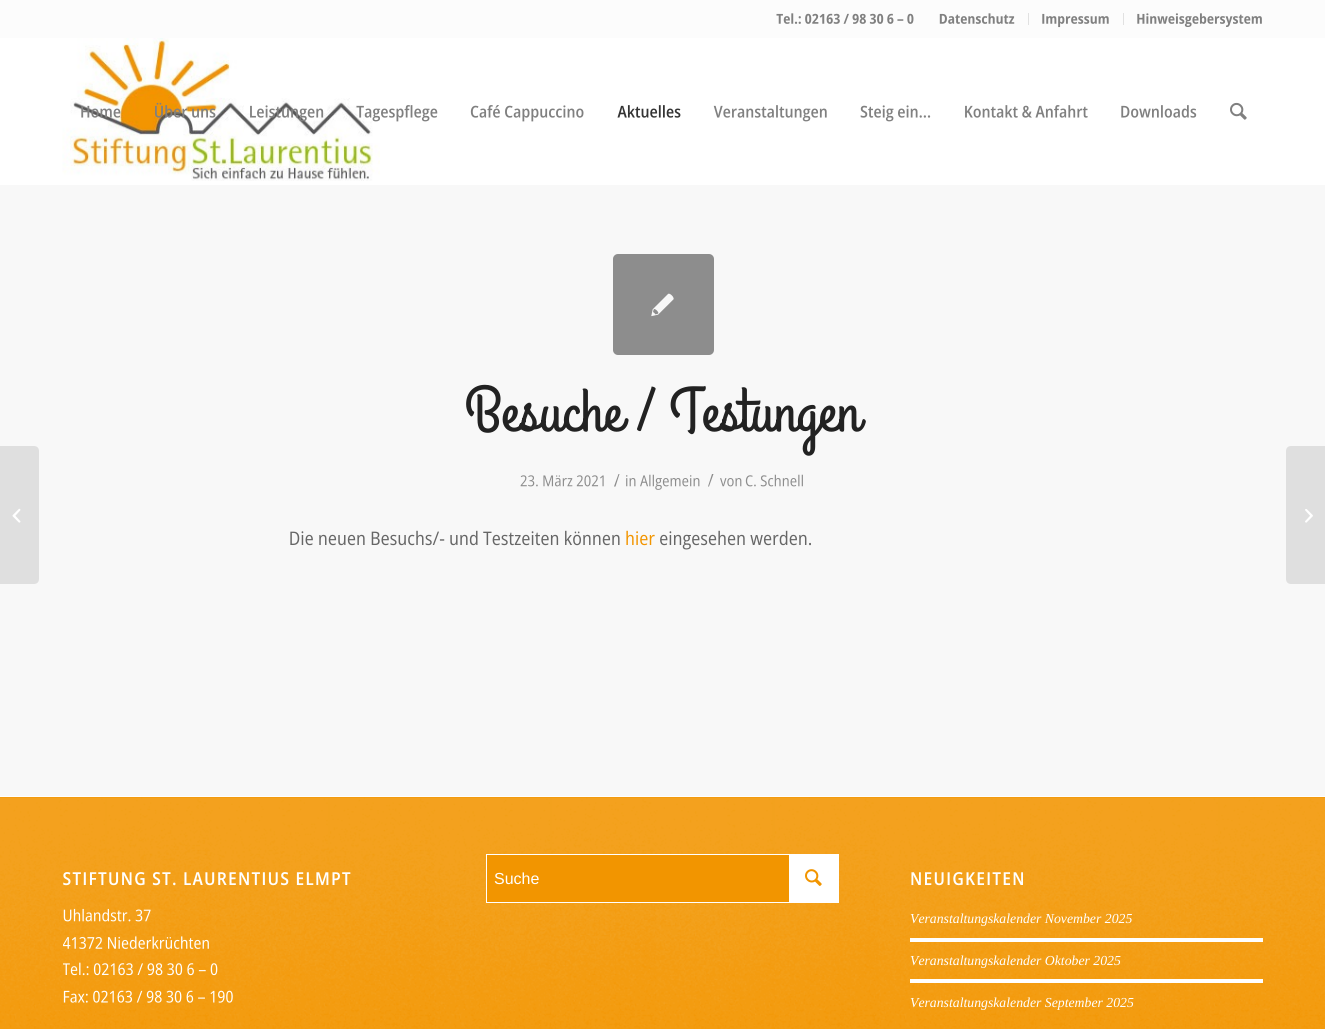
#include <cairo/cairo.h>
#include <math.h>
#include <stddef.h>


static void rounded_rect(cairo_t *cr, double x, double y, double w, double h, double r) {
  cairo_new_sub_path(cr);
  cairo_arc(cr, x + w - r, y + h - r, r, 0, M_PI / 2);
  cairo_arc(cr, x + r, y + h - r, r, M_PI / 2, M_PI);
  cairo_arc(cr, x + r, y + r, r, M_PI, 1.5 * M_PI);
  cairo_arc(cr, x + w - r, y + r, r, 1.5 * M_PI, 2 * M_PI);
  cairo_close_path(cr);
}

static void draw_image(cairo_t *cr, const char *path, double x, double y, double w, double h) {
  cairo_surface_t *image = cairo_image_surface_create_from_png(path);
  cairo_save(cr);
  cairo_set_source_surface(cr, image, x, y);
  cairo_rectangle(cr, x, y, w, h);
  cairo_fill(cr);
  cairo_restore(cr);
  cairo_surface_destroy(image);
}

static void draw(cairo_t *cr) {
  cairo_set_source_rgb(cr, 248 / 255.0, 248 / 255.0, 248 / 255.0);
  cairo_paint(cr);
  cairo_set_source_rgb(cr, 252 / 255.0, 252 / 255.0, 252 / 255.0);
  cairo_rectangle(cr, 0, 0, 1325, 38);
  cairo_fill(cr);
  draw_image(cr, "images/1.png", 776, 13, 138, 11);
  cairo_set_source_rgb(cr, 225 / 255.0, 225 / 255.0, 225 / 255.0);
  cairo_rectangle(cr, 1028, 13, 1, 12);
  cairo_fill(cr);
  draw_image(cr, "images/2.png", 939, 13, 76, 11);
  cairo_rectangle(cr, 1123, 13, 1, 12);
  cairo_fill(cr);
  draw_image(cr, "images/3.png", 1042, 13, 67, 15);
  draw_image(cr, "images/4.png", 1137, 13, 125, 14);
  cairo_set_source_rgb(cr, 1, 1, 1);
  cairo_rectangle(cr, 0, 38, 1325, 147);
  cairo_fill(cr);
  draw_image(cr, "images/5.png", 62, 38, 318, 143);
  draw_image(cr, "images/6.png", 81, 105, 40, 13);
  draw_image(cr, "images/7.png", 155, 102, 61, 16);
  draw_image(cr, "images/8.png", 250, 105, 74, 17);
  draw_image(cr, "images/9.png", 356, 105, 82, 17);
  draw_image(cr, "images/10.png", 470, 105, 114, 17);
  draw_image(cr, "images/11.png", 617, 105, 64, 13);
  draw_image(cr, "images/12.png", 713, 105, 114, 17);
  draw_image(cr, "images/13.png", 860, 105, 71, 17);
  draw_image(cr, "images/14.png", 965, 105, 123, 13);
  draw_image(cr, "images/15.png", 1121, 105, 76, 13);
  draw_image(cr, "images/16.png", 1230, 102, 17, 18);
  cairo_set_source_rgb(cr, 223 / 255.0, 223 / 255.0, 223 / 255.0);
  cairo_new_path(cr);
  cairo_move_to(cr, 0, 446);
  cairo_line_to(cr, 34, 446);
  cairo_curve_to(cr, 37, 446, 39, 448, 39, 451);
  cairo_line_to(cr, 39, 579);
  cairo_curve_to(cr, 39, 582, 37, 584, 34, 584);
  cairo_line_to(cr, 0, 584);
  cairo_close_path(cr);
  cairo_fill(cr);
  draw_image(cr, "images/17.png", 12, 508, 9, 15);
  cairo_set_source_rgb(cr, 141 / 255.0, 141 / 255.0, 141 / 255.0);
  rounded_rect(cr, 613, 254, 101, 101, 5);
  cairo_fill(cr);
  draw_image(cr, "images/18.png", 651, 293, 23, 24);
  draw_image(cr, "images/19.png", 520, 475, 84, 12);
  cairo_new_path(cr);
  cairo_move_to(cr, 619.5, 474);
  cairo_line_to(cr, 615.5, 486.5);
  cairo_line_to(cr, 614, 486.5);
  cairo_line_to(cr, 618.5, 474);
  cairo_close_path(cr);
  cairo_fill(cr);
  draw_image(cr, "images/20.png", 626, 475, 10, 12);
  draw_image(cr, "images/21.png", 640, 474, 60, 16);
  cairo_new_path(cr);
  cairo_move_to(cr, 713.5, 474);
  cairo_line_to(cr, 709, 486.5);
  cairo_line_to(cr, 708, 486.5);
  cairo_line_to(cr, 712, 474);
  cairo_close_path(cr);
  cairo_fill(cr);
  draw_image(cr, "images/22.png", 720, 478, 22, 9);
  draw_image(cr, "images/23.png", 745, 474, 58, 13);
  draw_image(cr, "images/24.png", 290, 530, 330, 16);
  draw_image(cr, "images/25.png", 626, 530, 29, 16);
  draw_image(cr, "images/26.png", 660, 530, 151, 20);
  cairo_set_source_rgb(cr, 242 / 255.0, 149 / 255.0, 0);
  cairo_rectangle(cr, 0, 797, 1325, 232);
  cairo_fill(cr);
  draw_image(cr, "images/27.png", 0, 797, 1325, 232);
  cairo_set_source_rgb(cr, 1, 1, 1);
  cairo_rectangle(cr, 0, 796, 1325, 1);
  cairo_fill(cr);
  draw_image(cr, "images/28.png", 63, 872, 288, 14);
  draw_image(cr, "images/29.png", 63, 908, 88, 14);
  draw_image(cr, "images/30.png", 63, 936, 146, 13);
  draw_image(cr, "images/31.png", 63, 962, 155, 14);
  draw_image(cr, "images/32.png", 63, 990, 170, 13);
  cairo_set_source_rgb(cr, 242 / 255.0, 149 / 255.0, 0);
  cairo_rectangle(cr, 487, 855, 302, 47);
  cairo_fill(cr);
  cairo_rectangle(cr, 486.5, 854.5, 352, 48);
  cairo_set_source_rgb(cr, 1, 1, 1);
  cairo_set_line_width(cr, 1);
  cairo_stroke(cr);
  cairo_rectangle(cr, 789, 855, 49, 47);
  cairo_fill(cr);
  draw_image(cr, "images/33.png", 805, 869, 17, 17);
  draw_image(cr, "images/34.png", 911, 872, 112, 14);
  cairo_rectangle(cr, 910, 938, 353, 4);
  cairo_fill(cr);
  cairo_rectangle(cr, 910, 979, 353, 4);
  cairo_fill(cr);
  cairo_set_source_rgb(cr, 223 / 255.0, 223 / 255.0, 223 / 255.0);
  cairo_new_path(cr);
  cairo_move_to(cr, 1291, 446);
  cairo_line_to(cr, 1325, 446);
  cairo_line_to(cr, 1325, 584);
  cairo_line_to(cr, 1291, 584);
  cairo_curve_to(cr, 1288, 584, 1286, 582, 1286, 579);
  cairo_line_to(cr, 1286, 451);
  cairo_curve_to(cr, 1286, 448, 1288, 446, 1291, 446);
  cairo_close_path(cr);
  cairo_fill(cr);
  draw_image(cr, "images/35.png", 1305, 509, 8, 14);
  cairo_select_font_face(cr, "Grand Hotel", CAIRO_FONT_SLANT_NORMAL, CAIRO_FONT_WEIGHT_NORMAL);
  cairo_set_font_size(cr, 62.5);
  cairo_set_source_rgb(cr, 34 / 255.0, 34 / 255.0, 34 / 255.0);
  cairo_move_to(cr, 465, 430);
  cairo_show_text(cr, "Besuche / Testungen");
  cairo_select_font_face(cr, "Liberation Sans", CAIRO_FONT_SLANT_NORMAL, CAIRO_FONT_WEIGHT_NORMAL);
  cairo_set_font_size(cr, 16);
  cairo_set_source_rgb(cr, 1, 1, 1);
  cairo_move_to(cr, 494, 884);
  cairo_show_text(cr, "Suche");
  cairo_select_font_face(cr, "Liberation Serif", CAIRO_FONT_SLANT_ITALIC, CAIRO_FONT_WEIGHT_NORMAL);
  cairo_set_font_size(cr, 13.75);
  cairo_move_to(cr, 910, 923);
  cairo_show_text(cr, "Veranstaltungskalender November 2025");
  cairo_move_to(cr, 910, 965);
  cairo_show_text(cr, "Veranstaltungskalender Oktober 2025");
  cairo_move_to(cr, 910, 1007);
  cairo_show_text(cr, "Veranstaltungskalender September 2025");
}

int main(void) {
  cairo_surface_t *surface = cairo_image_surface_create(CAIRO_FORMAT_RGB24, 1325, 1029);
  cairo_t *cr = cairo_create(surface);
  cairo_font_options_t *options = cairo_font_options_create();
  cairo_font_options_set_hint_metrics(options, CAIRO_HINT_METRICS_OFF);
  cairo_font_options_set_hint_style(options, CAIRO_HINT_STYLE_NONE);
  cairo_set_font_options(cr, options);
  cairo_set_miter_limit(cr, 4);
  draw(cr);
  cairo_surface_write_to_png(surface, "out.png");
  cairo_font_options_destroy(options);
  cairo_destroy(cr);
  cairo_surface_destroy(surface);
  return 0;
}
